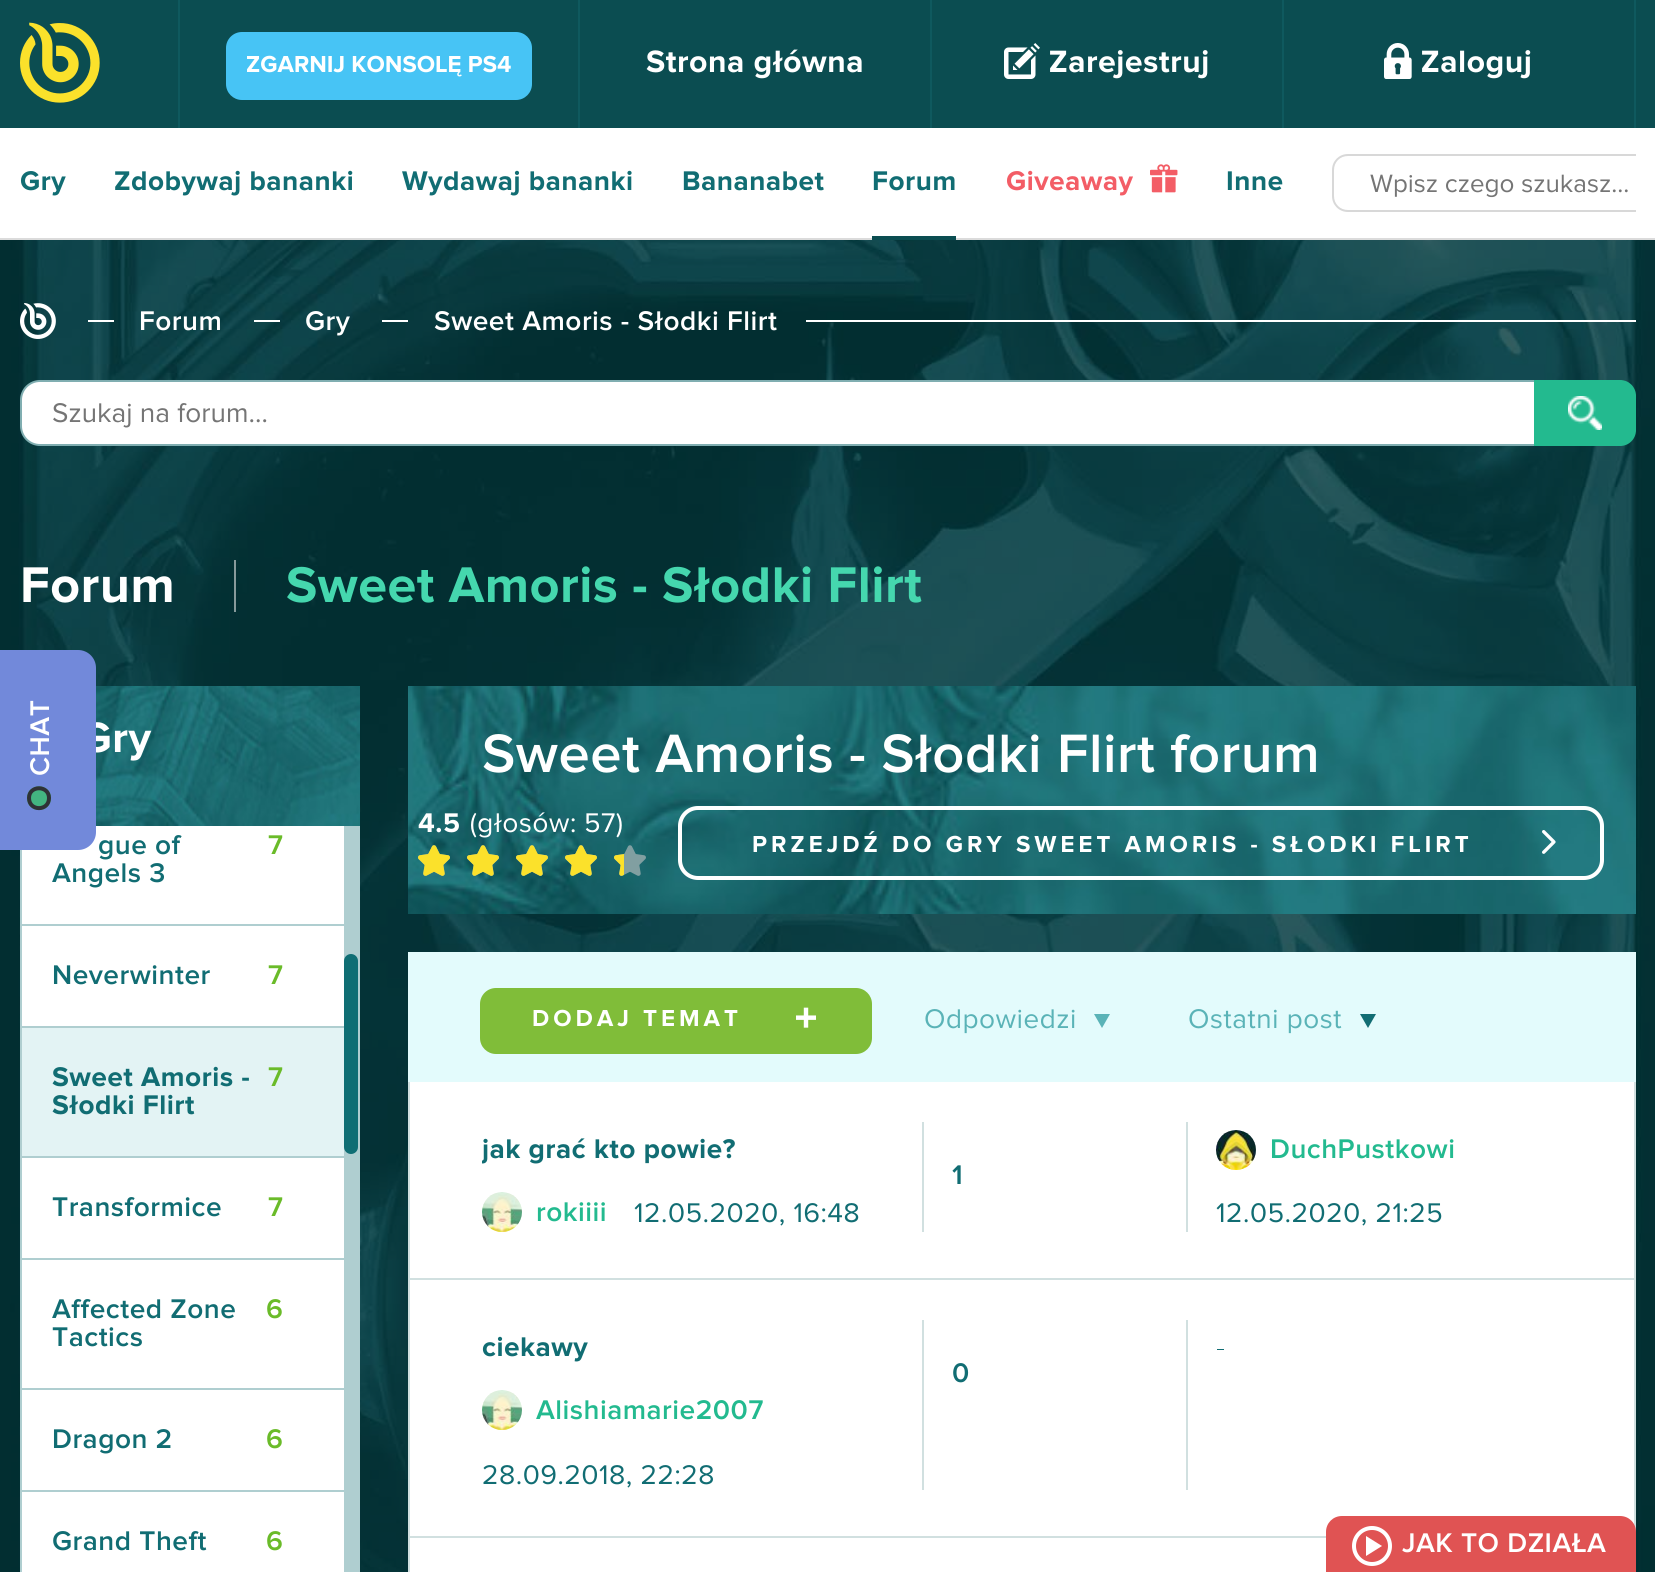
#include <cairo/cairo.h>
#include <math.h>
#include <stddef.h>


static void draw_spaced(cairo_t *cr, double x, double y, const char *s, double letter, double word) {
  cairo_move_to(cr, x, y);
  while (*s) {
    char ch[5] = {0};
    int n = 0;
    do ch[n++] = *s++; while ((*s & 0xC0) == 0x80);
    cairo_show_text(cr, ch);
    cairo_rel_move_to(cr, letter + word * (*ch == ' '), 0);
  }
}

static void rounded_rect(cairo_t *cr, double x, double y, double w, double h, double r) {
  cairo_new_sub_path(cr);
  cairo_arc(cr, x + w - r, y + h - r, r, 0, M_PI / 2);
  cairo_arc(cr, x + r, y + h - r, r, M_PI / 2, M_PI);
  cairo_arc(cr, x + r, y + r, r, M_PI, 1.5 * M_PI);
  cairo_arc(cr, x + w - r, y + r, r, 1.5 * M_PI, 2 * M_PI);
  cairo_close_path(cr);
}

static void draw_image(cairo_t *cr, const char *path, double x, double y, double w, double h) {
  cairo_surface_t *image = cairo_image_surface_create_from_png(path);
  cairo_save(cr);
  cairo_set_source_surface(cr, image, x, y);
  cairo_rectangle(cr, x, y, w, h);
  cairo_fill(cr);
  cairo_restore(cr);
  cairo_surface_destroy(image);
}

static void draw(cairo_t *cr) {
  cairo_set_source_rgb(cr, 1, 1, 1);
  cairo_paint(cr);
  cairo_set_source_rgb(cr, 11 / 255.0, 77 / 255.0, 81 / 255.0);
  cairo_rectangle(cr, 0, 0, 1655, 128);
  cairo_fill(cr);
  draw_image(cr, "images/1.png", 20, 22, 80, 81);
  cairo_set_source_rgb(cr, 15 / 255.0, 89 / 255.0, 94 / 255.0);
  cairo_rectangle(cr, 1634, 0, 2, 128);
  cairo_fill(cr);
  cairo_rectangle(cr, 178, 0, 2, 128);
  cairo_fill(cr);
  cairo_set_source_rgb(cr, 71 / 255.0, 196 / 255.0, 245 / 255.0);
  rounded_rect(cr, 226, 32, 306, 68, 16);
  cairo_fill(cr);
  draw_image(cr, "images/2.png", 247, 55, 264, 22);
  cairo_set_source_rgb(cr, 15 / 255.0, 89 / 255.0, 94 / 255.0);
  cairo_rectangle(cr, 578, 0, 2, 128);
  cairo_fill(cr);
  draw_image(cr, "images/3.png", 646, 49, 216, 30);
  cairo_rectangle(cr, 930, 0, 2, 128);
  cairo_fill(cr);
  draw_image(cr, "images/4.png", 1004, 43, 36, 36);
  draw_image(cr, "images/5.png", 1050, 50, 158, 29);
  cairo_rectangle(cr, 1282, 0, 2, 128);
  cairo_fill(cr);
  draw_image(cr, "images/6.png", 1384, 43, 28, 36);
  draw_image(cr, "images/7.png", 1422, 50, 109, 29);
  draw_image(cr, "images/8.png", 20, 171, 46, 25);
  draw_image(cr, "images/9.png", 115, 170, 238, 26);
  draw_image(cr, "images/10.png", 402, 170, 230, 26);
  draw_image(cr, "images/11.png", 683, 171, 141, 20);
  draw_image(cr, "images/12.png", 873, 171, 82, 20);
  draw_image(cr, "images/13.png", 1007, 170, 126, 26);
  draw_image(cr, "images/14.png", 1150, 164, 28, 29);
  draw_image(cr, "images/15.png", 1227, 171, 56, 20);
  cairo_set_source_rgb(cr, 219 / 255.0, 219 / 255.0, 219 / 255.0);
  cairo_rectangle(cr, 0, 238, 1655, 2);
  cairo_fill(cr);
  cairo_set_source_rgb(cr, 11 / 255.0, 77 / 255.0, 81 / 255.0);
  cairo_rectangle(cr, 872, 236, 84, 4);
  cairo_fill(cr);
  cairo_save(cr);
  cairo_rectangle(cr, 1332, 128, 304, 84);
  cairo_clip(cr);
  cairo_set_source_rgb(cr, 216 / 255.0, 216 / 255.0, 216 / 255.0);
  cairo_set_fill_rule(cr, CAIRO_FILL_RULE_EVEN_ODD);
  cairo_new_path(cr);
  cairo_move_to(cr, 1348, 154);
  cairo_line_to(cr, 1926, 154);
  cairo_line_to(cr, 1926, 212);
  cairo_line_to(cr, 1348, 212);
  cairo_curve_to(cr, 1339, 212, 1332, 205, 1332, 196);
  cairo_line_to(cr, 1332, 170);
  cairo_curve_to(cr, 1332, 161, 1339, 154, 1348, 154);
  cairo_close_path(cr);
  cairo_move_to(cr, 1348, 156);
  cairo_line_to(cr, 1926, 156);
  cairo_line_to(cr, 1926, 210);
  cairo_line_to(cr, 1348, 210);
  cairo_curve_to(cr, 1340, 210, 1334, 204, 1334, 196);
  cairo_line_to(cr, 1334, 170);
  cairo_curve_to(cr, 1334, 162, 1340, 156, 1348, 156);
  cairo_close_path(cr);
  cairo_fill(cr);
  cairo_restore(cr);
  draw_image(cr, "images/16.png", 1370, 174, 258, 24);
  draw_image(cr, "images/17.png", 0, 240, 1655, 1332);
  cairo_set_source_rgb(cr, 175 / 255.0, 206 / 255.0, 208 / 255.0);
  cairo_rectangle(cr, 20, 826, 340, 746);
  cairo_fill(cr);
  cairo_set_source_rgb(cr, 1, 1, 1);
  cairo_rectangle(cr, 22, 826, 322, 98);
  cairo_fill(cr);
  cairo_set_source_rgb(cr, 114 / 255.0, 137 / 255.0, 218 / 255.0);
  cairo_new_path(cr);
  cairo_move_to(cr, 0, 650);
  cairo_line_to(cr, 78, 650);
  cairo_curve_to(cr, 88, 650, 96, 658, 96, 668);
  cairo_line_to(cr, 96, 832);
  cairo_curve_to(cr, 96, 842, 88, 850, 78, 850);
  cairo_line_to(cr, 0, 850);
  cairo_close_path(cr);
  cairo_fill(cr);
  cairo_set_source_rgb(cr, 67 / 255.0, 181 / 255.0, 129 / 255.0);
  cairo_new_path(cr);
  cairo_move_to(cr, 27, 798);
  cairo_curve_to(cr, 27, 782.5, 51, 782.5, 51, 798);
  cairo_curve_to(cr, 51, 814, 27, 814, 27, 798);
  cairo_close_path(cr);
  cairo_fill(cr);
  cairo_new_path(cr);
  cairo_move_to(cr, 29, 798);
  cairo_curve_to(cr, 29, 785, 49, 785, 49, 798);
  cairo_curve_to(cr, 49, 811.5, 29, 811.5, 29, 798);
  cairo_close_path(cr);
  cairo_set_source_rgb(cr, 47 / 255.0, 49 / 255.0, 54 / 255.0);
  cairo_set_line_width(cr, 4);
  cairo_stroke(cr);
  draw_image(cr, "images/18.png", 20, 303, 36, 36);
  cairo_set_source_rgb(cr, 1, 1, 1);
  cairo_rectangle(cr, 88, 320, 26, 2);
  cairo_fill(cr);
  cairo_rectangle(cr, 254, 320, 26, 2);
  cairo_fill(cr);
  cairo_rectangle(cr, 382, 320, 26, 2);
  cairo_fill(cr);
  cairo_rectangle(cr, 806, 320, 830, 2);
  cairo_fill(cr);
  rounded_rect(cr, 21, 381, 1614, 64, 19);
  cairo_fill_preserve(cr);
  cairo_set_source_rgb(cr, 128 / 255.0, 174 / 255.0, 177 / 255.0);
  cairo_set_line_width(cr, 2);
  cairo_stroke(cr);
  draw_image(cr, "images/19.png", 53, 403, 214, 25);
  cairo_set_source_rgb(cr, 35 / 255.0, 186 / 255.0, 143 / 255.0);
  cairo_new_path(cr);
  cairo_move_to(cr, 1534, 380);
  cairo_line_to(cr, 1620, 380);
  cairo_curve_to(cr, 1629, 380, 1636, 387, 1636, 396);
  cairo_line_to(cr, 1636, 430);
  cairo_curve_to(cr, 1636, 439, 1629, 446, 1620, 446);
  cairo_line_to(cr, 1534, 446);
  cairo_close_path(cr);
  cairo_fill(cr);
  draw_image(cr, "images/20.png", 1568, 396, 34, 34);
  draw_image(cr, "images/21.png", 23, 567, 149, 36);
  cairo_set_source_rgb(cr, 135 / 255.0, 154 / 255.0, 155 / 255.0);
  cairo_rectangle(cr, 234, 560, 2, 52);
  cairo_fill(cr);
  draw_image(cr, "images/22.png", 287, 566, 635, 37);
  draw_image(cr, "images/23.png", 96, 686, 264, 140);
  draw_image(cr, "images/24.png", 96, 722, 56, 39);
  cairo_set_source_rgb(cr, 1, 1, 1);
  cairo_rectangle(cr, 22, 926, 322, 100);
  cairo_fill(cr);
  cairo_set_source_rgb(cr, 227 / 255.0, 243 / 255.0, 244 / 255.0);
  cairo_rectangle(cr, 22, 1028, 322, 128);
  cairo_fill(cr);
  draw_image(cr, "images/25.png", 52, 1066, 197, 21);
  draw_image(cr, "images/26.png", 52, 1094, 143, 21);
  cairo_set_source_rgb(cr, 1, 1, 1);
  cairo_rectangle(cr, 22, 1158, 322, 100);
  cairo_fill(cr);
  cairo_rectangle(cr, 22, 1260, 322, 128);
  cairo_fill(cr);
  cairo_rectangle(cr, 22, 1390, 322, 100);
  cairo_fill(cr);
  cairo_rectangle(cr, 22, 1492, 322, 80);
  cairo_fill(cr);
  cairo_set_source_rgb(cr, 15 / 255.0, 110 / 255.0, 116 / 255.0);
  rounded_rect(cr, 344, 954, 14, 200, 7);
  cairo_fill(cr);
  draw_image(cr, "images/27.png", 408, 686, 1228, 228);
  draw_image(cr, "images/28.png", 418, 813, 41, 20);
  draw_image(cr, "images/29.png", 471, 812, 104, 26);
  draw_image(cr, "images/30.png", 585, 813, 30, 20);
  cairo_set_source_rgb(cr, 1, 1, 1);
  cairo_new_path(cr);
  cairo_move_to(cr, 616.5, 836.5);
  cairo_curve_to(cr, 620.5, 829, 620.5, 821, 616.5, 814);
  cairo_line_to(cr, 618, 813);
  cairo_curve_to(cr, 623, 820, 623, 830.5, 618, 837.5);
  cairo_close_path(cr);
  cairo_fill(cr);
  draw_image(cr, "images/31.png", 418, 845, 228, 31);
  draw_image(cr, "images/32.png", 418, 845, 206, 31);
  rounded_rect(cr, 680, 808, 922, 70, 18);
  cairo_set_line_width(cr, 4);
  cairo_stroke(cr);
  draw_image(cr, "images/33.png", 753, 831, 249, 22);
  draw_image(cr, "images/34.png", 1016, 835, 453, 18);
  draw_image(cr, "images/35.png", 1542, 830, 14, 24);
  cairo_set_source_rgb(cr, 227 / 255.0, 251 / 255.0, 252 / 255.0);
  cairo_rectangle(cr, 408, 952, 1228, 130);
  cairo_fill(cr);
  cairo_set_source_rgb(cr, 128 / 255.0, 189 / 255.0, 57 / 255.0);
  rounded_rect(cr, 480, 988, 392, 66, 16);
  cairo_fill(cr);
  draw_image(cr, "images/36.png", 533, 1009, 205, 18);
  draw_image(cr, "images/37.png", 796, 1007, 20, 21);
  draw_image(cr, "images/38.png", 925, 1009, 150, 25);
  cairo_set_source_rgb(cr, 90 / 255.0, 179 / 255.0, 183 / 255.0);
  cairo_new_path(cr);
  cairo_move_to(cr, 1094, 1014);
  cairo_line_to(cr, 1110, 1014);
  cairo_line_to(cr, 1102, 1028);
  cairo_close_path(cr);
  cairo_fill(cr);
  draw_image(cr, "images/39.png", 1189, 1009, 153, 25);
  cairo_set_source_rgb(cr, 17 / 255.0, 109 / 255.0, 115 / 255.0);
  cairo_new_path(cr);
  cairo_move_to(cr, 1360, 1014);
  cairo_line_to(cr, 1376, 1014);
  cairo_line_to(cr, 1368, 1028);
  cairo_close_path(cr);
  cairo_fill(cr);
  cairo_set_source_rgb(cr, 209 / 255.0, 224 / 255.0, 224 / 255.0);
  cairo_rectangle(cr, 1634, 1082, 2, 450);
  cairo_fill(cr);
  cairo_rectangle(cr, 408, 1082, 2, 490);
  cairo_fill(cr);
  cairo_rectangle(cr, 410, 1278, 1224, 2);
  cairo_fill(cr);
  cairo_set_source_rgb(cr, 1, 1, 1);
  cairo_rectangle(cr, 410, 1082, 1224, 196);
  cairo_fill(cr);
  cairo_set_source_rgb(cr, 209 / 255.0, 224 / 255.0, 224 / 255.0);
  cairo_rectangle(cr, 1186, 1122, 2, 110);
  cairo_fill(cr);
  draw_image(cr, "images/40.png", 1216, 1130, 40, 40);
  draw_image(cr, "images/41.png", 1216, 1203, 226, 23);
  cairo_rectangle(cr, 922, 1122, 2, 110);
  cairo_fill(cr);
  draw_image(cr, "images/42.png", 482, 1138, 253, 26);
  draw_image(cr, "images/43.png", 482, 1192, 40, 40);
  draw_image(cr, "images/44.png", 634, 1203, 225, 23);
  cairo_rectangle(cr, 410, 1536, 916, 2);
  cairo_fill(cr);
  cairo_set_source_rgb(cr, 1, 1, 1);
  cairo_rectangle(cr, 410, 1280, 1224, 256);
  cairo_fill(cr);
  cairo_set_source_rgb(cr, 209 / 255.0, 224 / 255.0, 224 / 255.0);
  cairo_rectangle(cr, 922, 1320, 2, 170);
  cairo_fill(cr);
  cairo_rectangle(cr, 1186, 1320, 2, 170);
  cairo_fill(cr);
  cairo_set_source_rgb(cr, 17 / 255.0, 109 / 255.0, 115 / 255.0);
  cairo_rectangle(cr, 1217, 1349, 7, 1);
  cairo_fill(cr);
  draw_image(cr, "images/45.png", 482, 1336, 106, 26);
  draw_image(cr, "images/46.png", 482, 1390, 40, 40);
  draw_image(cr, "images/47.png", 483, 1465, 230, 23);
  cairo_set_source_rgb(cr, 1, 1, 1);
  cairo_rectangle(cr, 410, 1538, 916, 34);
  cairo_fill(cr);
  cairo_set_source_rgb(cr, 224 / 255.0, 83 / 255.0, 83 / 255.0);
  cairo_new_path(cr);
  cairo_move_to(cr, 1342, 1516);
  cairo_line_to(cr, 1620, 1516);
  cairo_curve_to(cr, 1629, 1516, 1636, 1523, 1636, 1532);
  cairo_line_to(cr, 1636, 1572);
  cairo_line_to(cr, 1326, 1572);
  cairo_line_to(cr, 1326, 1532);
  cairo_curve_to(cr, 1326, 1523, 1333, 1516, 1342, 1516);
  cairo_close_path(cr);
  cairo_fill(cr);
  cairo_set_source_rgb(cr, 1, 1, 1);
  cairo_new_path(cr);
  cairo_move_to(cr, 1366, 1556);
  cairo_line_to(cr, 1366, 1536);
  cairo_line_to(cr, 1382, 1546);
  cairo_close_path(cr);
  cairo_fill(cr);
  cairo_arc(cr, 1372, 1546, 18, 0, 2 * M_PI);
  cairo_stroke(cr);
  cairo_select_font_face(cr, "Proxima Nova SemiBold", CAIRO_FONT_SLANT_NORMAL, CAIRO_FONT_WEIGHT_NORMAL);
  cairo_set_font_size(cr, 28);
  cairo_save(cr);
  cairo_translate(cr, 49, 776);
  cairo_rotate(cr, -90 * M_PI / 180);
  draw_spaced(cr, 0, 0, "CHAT", 0.5, 0);
  cairo_restore(cr);
  draw_spaced(cr, 139, 330, "Forum", 0.5, 0);
  draw_spaced(cr, 305, 330, "Gry", 0.5, 0);
  draw_spaced(cr, 434, 330, "Sweet Amoris - Słodki Flirt", 0.5, 0);
  cairo_set_source_rgb(cr, 17 / 255.0, 109 / 255.0, 115 / 255.0);
  draw_spaced(cr, 98, 854, "gue of", 0.5, 0);
  cairo_set_source_rgb(cr, 106 / 255.0, 187 / 255.0, 41 / 255.0);
  draw_spaced(cr, 268, 854, "7", 0.5, 0);
  cairo_set_source_rgb(cr, 17 / 255.0, 109 / 255.0, 115 / 255.0);
  draw_spaced(cr, 52, 882, "Angels 3", 0.5, 0);
  draw_spaced(cr, 52, 984, "Neverwinter", 0.5, 0);
  cairo_set_source_rgb(cr, 106 / 255.0, 187 / 255.0, 41 / 255.0);
  draw_spaced(cr, 268, 984, "7", 0.5, 0);
  draw_spaced(cr, 268, 1086, "7", 0.5, 0);
  cairo_set_source_rgb(cr, 17 / 255.0, 109 / 255.0, 115 / 255.0);
  draw_spaced(cr, 52, 1216, "Transformice", 0.5, 0);
  cairo_set_source_rgb(cr, 106 / 255.0, 187 / 255.0, 41 / 255.0);
  draw_spaced(cr, 268, 1216, "7", 0.5, 0);
  cairo_set_source_rgb(cr, 17 / 255.0, 109 / 255.0, 115 / 255.0);
  draw_spaced(cr, 52, 1318, "Affected Zone", 0.5, 0);
  cairo_set_source_rgb(cr, 106 / 255.0, 187 / 255.0, 41 / 255.0);
  draw_spaced(cr, 266, 1318, "6", 0.5, 0);
  cairo_set_source_rgb(cr, 17 / 255.0, 109 / 255.0, 115 / 255.0);
  draw_spaced(cr, 52, 1346, "Tactics", 0.5, 0);
  draw_spaced(cr, 52, 1448, "Dragon 2", 0.5, 0);
  cairo_set_source_rgb(cr, 106 / 255.0, 187 / 255.0, 41 / 255.0);
  draw_spaced(cr, 266, 1448, "6", 0.5, 0);
  cairo_set_source_rgb(cr, 17 / 255.0, 109 / 255.0, 115 / 255.0);
  draw_spaced(cr, 52, 1550, "Grand Theft", 0.5, 0);
  cairo_set_source_rgb(cr, 106 / 255.0, 187 / 255.0, 41 / 255.0);
  draw_spaced(cr, 266, 1550, "6", 0.5, 0);
  cairo_set_font_size(cr, 56);
  cairo_set_source_rgb(cr, 1, 1, 1);
  draw_spaced(cr, 482, 772, "Sweet Amoris - Słodki Flirt forum", 0.5, 0);
  cairo_set_font_size(cr, 28);
  cairo_set_source_rgb(cr, 35 / 255.0, 186 / 255.0, 143 / 255.0);
  draw_spaced(cr, 1270, 1158, "DuchPustkowi", 0.5, 0);
  cairo_set_source_rgb(cr, 17 / 255.0, 109 / 255.0, 115 / 255.0);
  draw_spaced(cr, 952, 1184, "1", 0.5, 0);
  cairo_set_source_rgb(cr, 35 / 255.0, 186 / 255.0, 143 / 255.0);
  draw_spaced(cr, 536, 1221, "rokiiii", 0.5, 0);
  cairo_set_source_rgb(cr, 17 / 255.0, 109 / 255.0, 115 / 255.0);
  draw_spaced(cr, 952, 1382, "0", 0.5, 0);
  cairo_set_source_rgb(cr, 35 / 255.0, 186 / 255.0, 143 / 255.0);
  draw_spaced(cr, 536, 1419, "Alishiamarie2007", 0.5, 0);
  cairo_set_source_rgb(cr, 1, 1, 1);
  draw_spaced(cr, 1402, 1552, "JAK TO DZIAŁA", 0.5, 0);
}

int main(void) {
  cairo_surface_t *surface = cairo_image_surface_create(CAIRO_FORMAT_RGB24, 1655, 1572);
  cairo_t *cr = cairo_create(surface);
  cairo_font_options_t *options = cairo_font_options_create();
  cairo_font_options_set_hint_metrics(options, CAIRO_HINT_METRICS_OFF);
  cairo_font_options_set_hint_style(options, CAIRO_HINT_STYLE_NONE);
  cairo_set_font_options(cr, options);
  cairo_set_miter_limit(cr, 4);
  draw(cr);
  cairo_surface_write_to_png(surface, "out.png");
  cairo_font_options_destroy(options);
  cairo_destroy(cr);
  cairo_surface_destroy(surface);
  return 0;
}
